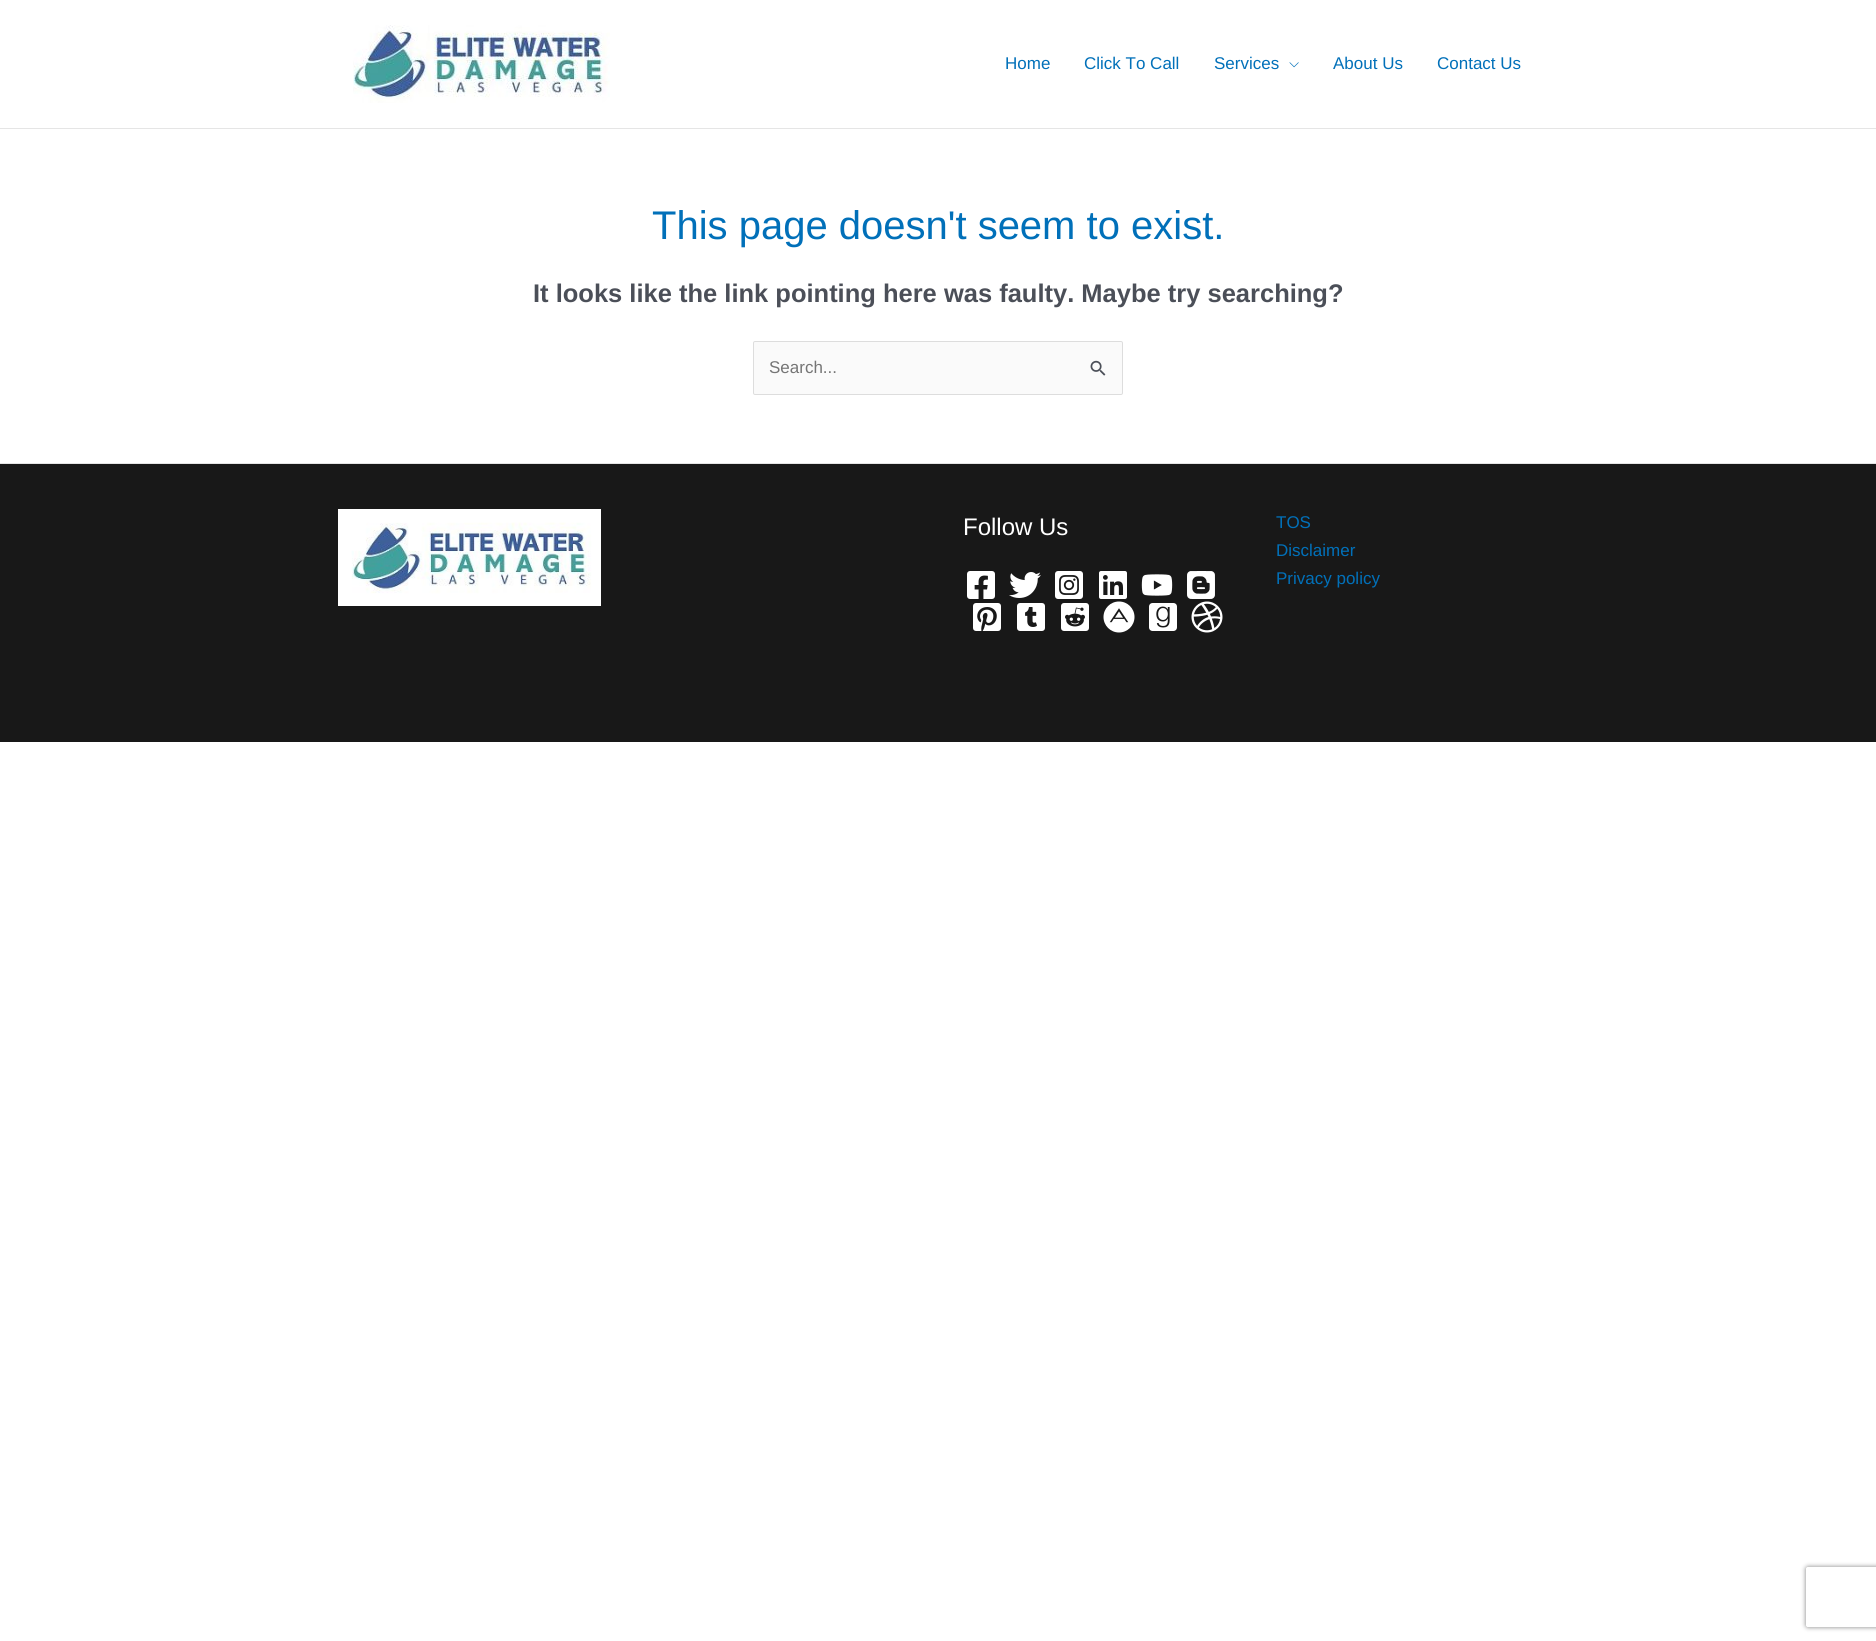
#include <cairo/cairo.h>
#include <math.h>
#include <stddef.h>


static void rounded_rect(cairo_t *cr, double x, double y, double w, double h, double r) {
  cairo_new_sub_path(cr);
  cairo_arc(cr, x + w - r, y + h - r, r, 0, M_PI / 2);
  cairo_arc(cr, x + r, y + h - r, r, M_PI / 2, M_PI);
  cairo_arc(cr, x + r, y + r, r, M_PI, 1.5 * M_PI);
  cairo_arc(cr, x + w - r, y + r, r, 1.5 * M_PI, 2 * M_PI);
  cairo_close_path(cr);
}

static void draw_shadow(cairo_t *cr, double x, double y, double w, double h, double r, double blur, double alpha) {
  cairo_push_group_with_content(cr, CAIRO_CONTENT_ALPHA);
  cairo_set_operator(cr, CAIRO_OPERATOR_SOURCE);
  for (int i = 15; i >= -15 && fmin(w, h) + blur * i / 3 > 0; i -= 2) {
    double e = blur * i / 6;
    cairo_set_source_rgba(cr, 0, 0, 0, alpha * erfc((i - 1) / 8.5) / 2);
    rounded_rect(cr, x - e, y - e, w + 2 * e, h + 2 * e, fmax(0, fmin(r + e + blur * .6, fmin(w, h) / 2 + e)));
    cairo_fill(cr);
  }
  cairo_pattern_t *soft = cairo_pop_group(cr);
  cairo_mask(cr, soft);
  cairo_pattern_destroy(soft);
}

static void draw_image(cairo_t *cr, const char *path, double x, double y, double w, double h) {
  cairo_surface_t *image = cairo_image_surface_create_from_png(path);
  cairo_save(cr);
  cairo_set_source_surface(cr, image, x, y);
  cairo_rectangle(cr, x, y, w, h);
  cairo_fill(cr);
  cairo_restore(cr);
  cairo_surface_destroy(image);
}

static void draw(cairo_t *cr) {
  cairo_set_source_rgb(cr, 1, 1, 1);
  cairo_paint(cr);
  cairo_set_source_rgb(cr, 229 / 255.0, 229 / 255.0, 229 / 255.0);
  cairo_rectangle(cr, 0, 128, 1876, 1);
  cairo_fill(cr);
  draw_image(cr, "images/1.png", 353, 25, 257, 78);
  draw_image(cr, "images/2.png", 1289, 62, 10, 6);
  cairo_set_source_rgb(cr, 250 / 255.0, 250 / 255.0, 250 / 255.0);
  rounded_rect(cr, 753.5, 341.5, 369, 53, 1.5);
  cairo_fill_preserve(cr);
  cairo_set_source_rgb(cr, 221 / 255.0, 221 / 255.0, 221 / 255.0);
  cairo_set_line_width(cr, 1);
  cairo_stroke(cr);
  draw_image(cr, "images/3.png", 1090, 360, 16, 16);
  cairo_set_source_rgb(cr, 24 / 255.0, 24 / 255.0, 24 / 255.0);
  cairo_rectangle(cr, 0, 464, 1876, 278);
  cairo_fill(cr);
  cairo_set_source_rgb(cr, 229 / 255.0, 229 / 255.0, 229 / 255.0);
  cairo_rectangle(cr, 0, 463, 1876, 1);
  cairo_fill(cr);
  draw_image(cr, "images/4.png", 338, 509, 263, 97);
  draw_image(cr, "images/5.png", 967, 571, 28, 28);
  draw_image(cr, "images/6.png", 1009, 572, 32, 26);
  draw_image(cr, "images/7.png", 1055, 571, 28, 28);
  draw_image(cr, "images/8.png", 1099, 571, 28, 28);
  draw_image(cr, "images/9.png", 1141, 574, 32, 22);
  draw_image(cr, "images/10.png", 1187, 571, 28, 28);
  draw_image(cr, "images/11.png", 973, 603, 28, 28);
  draw_image(cr, "images/12.png", 1017, 603, 28, 28);
  draw_image(cr, "images/13.png", 1061, 603, 28, 28);
  draw_image(cr, "images/14.png", 1103, 601, 32, 32);
  draw_image(cr, "images/15.png", 1149, 603, 28, 28);
  draw_image(cr, "images/16.png", 1191, 601, 32, 32);
  cairo_save(cr);
  cairo_set_fill_rule(cr, CAIRO_FILL_RULE_EVEN_ODD);
  cairo_new_path(cr);
  cairo_move_to(cr, 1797, 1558);
  cairo_line_to(cr, 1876, 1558);
  cairo_line_to(cr, 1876, 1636);
  cairo_line_to(cr, 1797, 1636);
  cairo_close_path(cr);
  cairo_move_to(cr, 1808, 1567);
  cairo_line_to(cr, 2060, 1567);
  cairo_curve_to(cr, 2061, 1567, 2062, 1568, 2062, 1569);
  cairo_line_to(cr, 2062, 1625);
  cairo_curve_to(cr, 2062, 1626, 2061, 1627, 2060, 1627);
  cairo_line_to(cr, 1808, 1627);
  cairo_curve_to(cr, 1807, 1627, 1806, 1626, 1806, 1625);
  cairo_line_to(cr, 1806, 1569);
  cairo_curve_to(cr, 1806, 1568, 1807, 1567, 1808, 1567);
  cairo_close_path(cr);
  cairo_clip(cr);
  cairo_set_source_rgb(cr, 128 / 255.0, 128 / 255.0, 128 / 255.0);
  draw_shadow(cr, 1806, 1567, 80, 60, 2, 2.5, 1);
  cairo_restore(cr);
  cairo_select_font_face(cr, "Liberation Sans", CAIRO_FONT_SLANT_NORMAL, CAIRO_FONT_WEIGHT_NORMAL);
  cairo_set_font_size(cr, 17);
  cairo_set_source_rgb(cr, 1 / 255.0, 112 / 255.0, 185 / 255.0);
  cairo_move_to(cr, 1005, 69);
  cairo_show_text(cr, "Home");
  cairo_move_to(cr, 1084, 69);
  cairo_show_text(cr, "Click To Call");
  cairo_move_to(cr, 1214, 69);
  cairo_show_text(cr, "Services");
  cairo_move_to(cr, 1333, 69);
  cairo_show_text(cr, "About Us");
  cairo_move_to(cr, 1437, 69);
  cairo_show_text(cr, "Contact Us");
  cairo_set_font_size(cr, 40);
  cairo_move_to(cr, 652, 239);
  cairo_show_text(cr, "This page doesn't seem to exist.");
  cairo_select_font_face(cr, "Liberation Sans", CAIRO_FONT_SLANT_NORMAL, CAIRO_FONT_WEIGHT_BOLD);
  cairo_set_font_size(cr, 25.5);
  cairo_set_source_rgb(cr, 75 / 255.0, 79 / 255.0, 88 / 255.0);
  cairo_move_to(cr, 533, 302);
  cairo_show_text(cr, "It looks like the link pointing here was faulty. Maybe try searching?");
  cairo_select_font_face(cr, "Liberation Sans", CAIRO_FONT_SLANT_NORMAL, CAIRO_FONT_WEIGHT_NORMAL);
  cairo_set_font_size(cr, 17);
  cairo_set_source_rgb(cr, 117 / 255.0, 117 / 255.0, 117 / 255.0);
  cairo_move_to(cr, 769, 373);
  cairo_show_text(cr, "Search...");
  cairo_set_font_size(cr, 24);
  cairo_set_source_rgb(cr, 1, 1, 1);
  cairo_move_to(cr, 963, 535);
  cairo_show_text(cr, "Follow Us");
  cairo_set_font_size(cr, 17);
  cairo_set_source_rgb(cr, 1 / 255.0, 112 / 255.0, 185 / 255.0);
  cairo_move_to(cr, 1276, 528);
  cairo_show_text(cr, "TOS");
  cairo_move_to(cr, 1276, 556);
  cairo_show_text(cr, "Disclaimer");
  cairo_move_to(cr, 1276, 584);
  cairo_show_text(cr, "Privacy policy");
}

int main(void) {
  cairo_surface_t *surface = cairo_image_surface_create(CAIRO_FORMAT_RGB24, 1876, 1641);
  cairo_t *cr = cairo_create(surface);
  cairo_font_options_t *options = cairo_font_options_create();
  cairo_font_options_set_hint_metrics(options, CAIRO_HINT_METRICS_OFF);
  cairo_font_options_set_hint_style(options, CAIRO_HINT_STYLE_NONE);
  cairo_set_font_options(cr, options);
  cairo_set_miter_limit(cr, 4);
  draw(cr);
  cairo_surface_write_to_png(surface, "out.png");
  cairo_font_options_destroy(options);
  cairo_destroy(cr);
  cairo_surface_destroy(surface);
  return 0;
}
